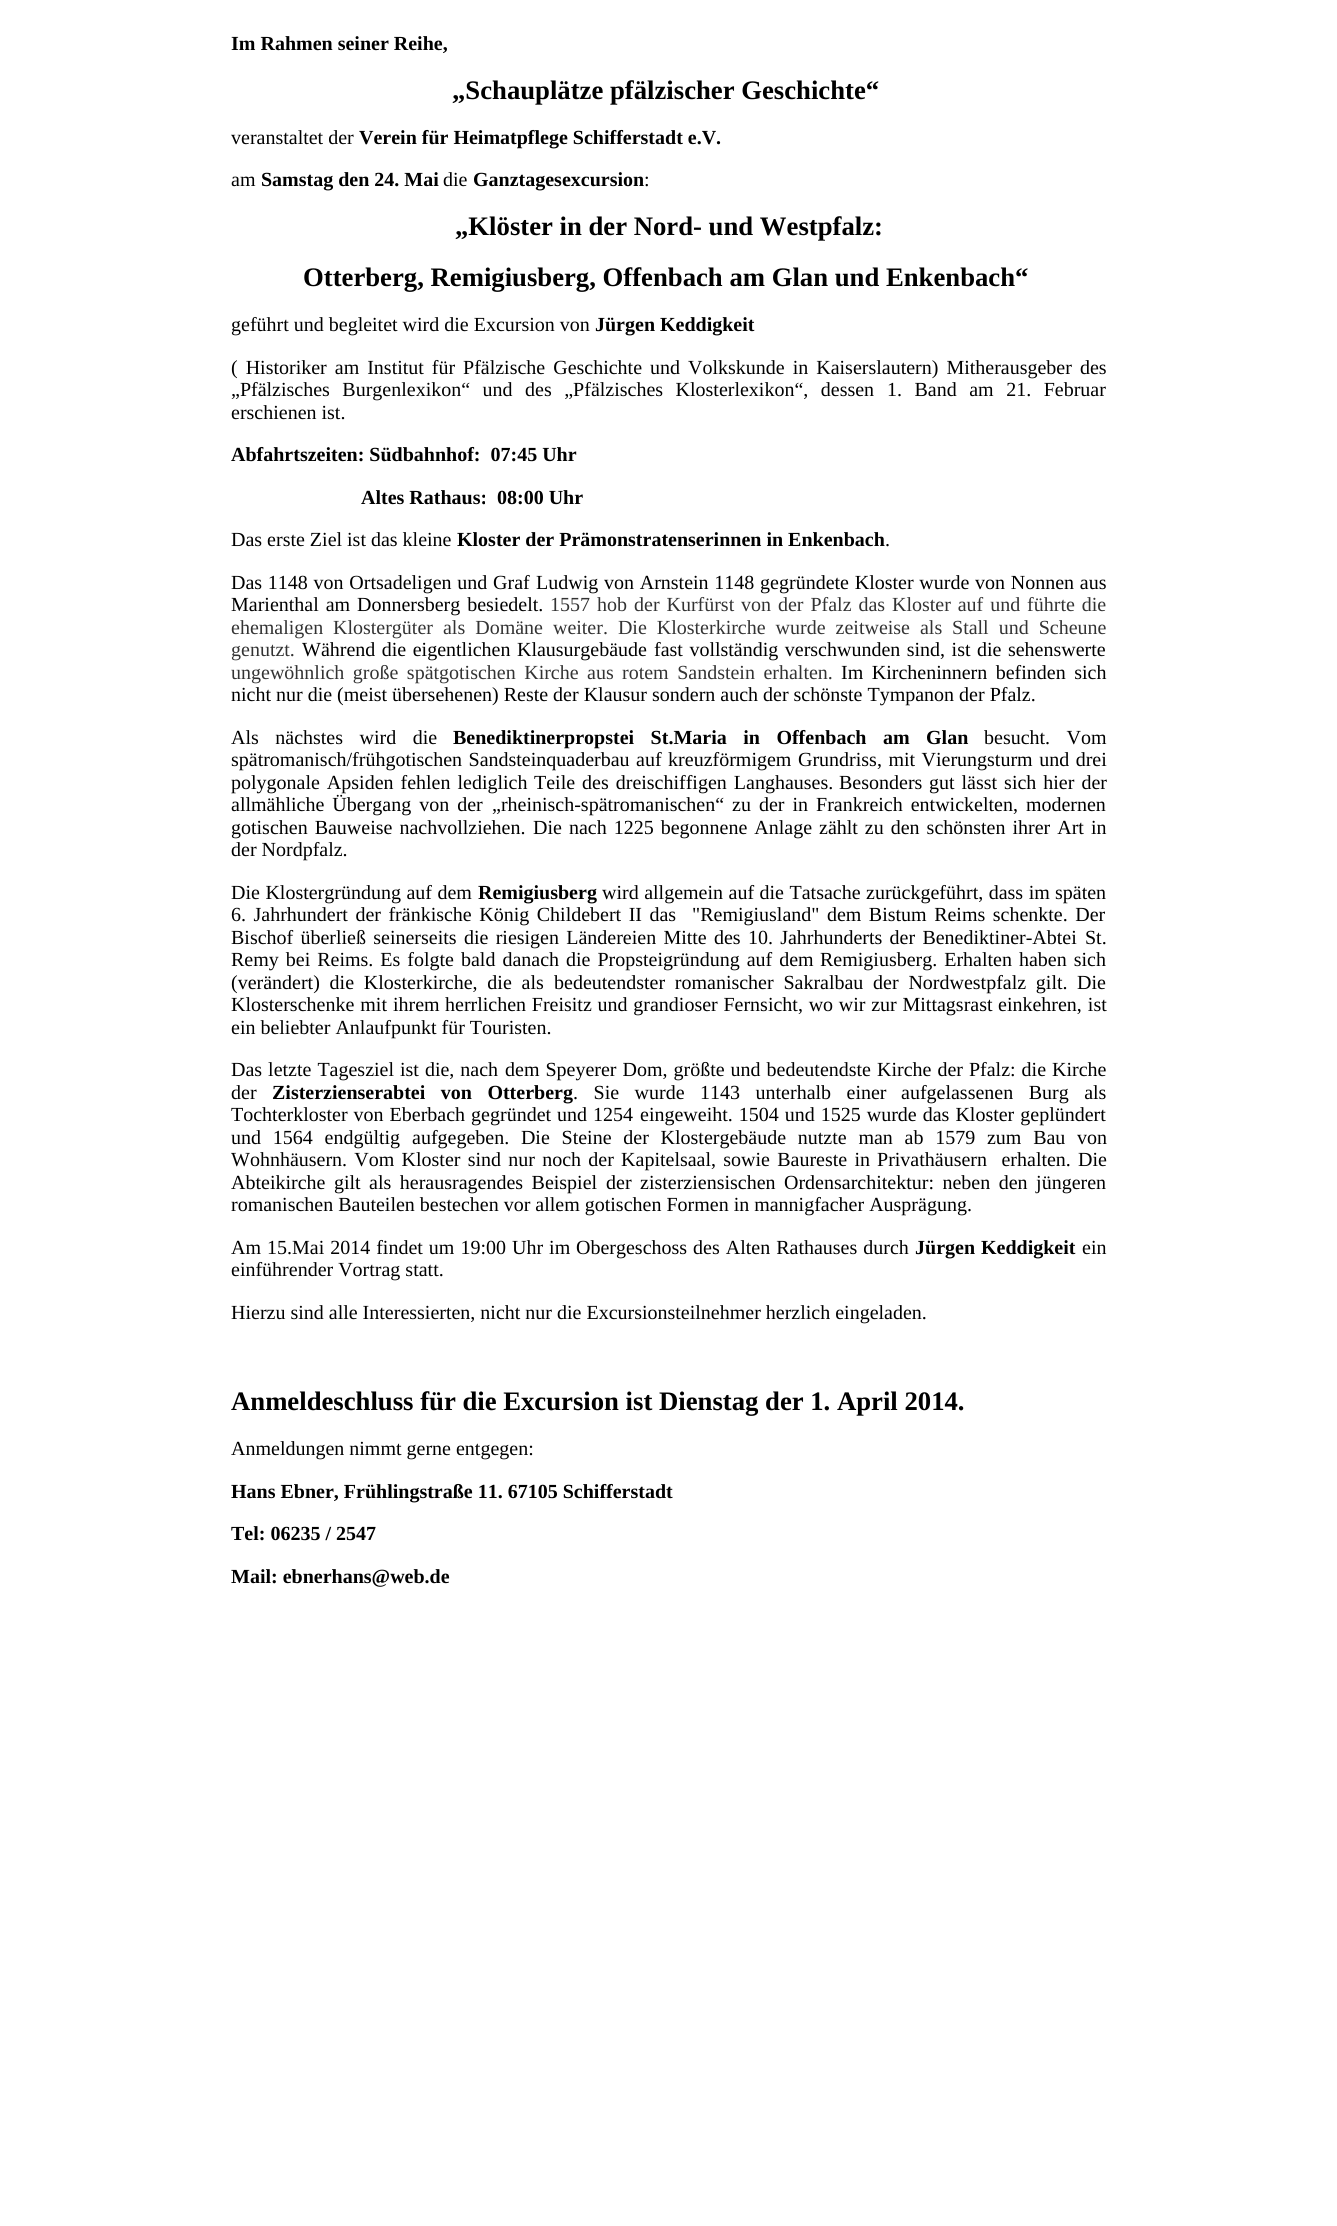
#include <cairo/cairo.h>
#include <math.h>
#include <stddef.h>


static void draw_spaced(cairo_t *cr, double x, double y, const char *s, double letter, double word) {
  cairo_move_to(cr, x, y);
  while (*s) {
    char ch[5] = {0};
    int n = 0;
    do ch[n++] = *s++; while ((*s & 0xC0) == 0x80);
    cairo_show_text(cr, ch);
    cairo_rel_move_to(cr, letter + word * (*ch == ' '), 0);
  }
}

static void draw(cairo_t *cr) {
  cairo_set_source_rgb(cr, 1, 1, 1);
  cairo_paint(cr);
  cairo_select_font_face(cr, "Liberation Serif", CAIRO_FONT_SLANT_NORMAL, CAIRO_FONT_WEIGHT_BOLD);
  cairo_set_font_size(cr, 20);
  cairo_set_source_rgb(cr, 0, 0, 0);
  cairo_move_to(cr, 231, 50);
  cairo_show_text(cr, "Im Rahmen seiner Reihe,");
  cairo_set_font_size(cr, 26.7);
  cairo_move_to(cr, 452, 99);
  cairo_show_text(cr, "„Schauplätze pfälzischer Geschichte“");
  cairo_select_font_face(cr, "Liberation Serif", CAIRO_FONT_SLANT_NORMAL, CAIRO_FONT_WEIGHT_NORMAL);
  cairo_set_font_size(cr, 20);
  cairo_move_to(cr, 231, 144);
  cairo_show_text(cr, "veranstaltet der");
  cairo_select_font_face(cr, "Liberation Serif", CAIRO_FONT_SLANT_NORMAL, CAIRO_FONT_WEIGHT_BOLD);
  cairo_move_to(cr, 359, 144);
  cairo_show_text(cr, "Verein für Heimatpflege Schifferstadt e.V.");
  cairo_select_font_face(cr, "Liberation Serif", CAIRO_FONT_SLANT_NORMAL, CAIRO_FONT_WEIGHT_NORMAL);
  cairo_move_to(cr, 231, 186);
  cairo_show_text(cr, "am");
  cairo_select_font_face(cr, "Liberation Serif", CAIRO_FONT_SLANT_NORMAL, CAIRO_FONT_WEIGHT_BOLD);
  cairo_move_to(cr, 261, 186);
  cairo_show_text(cr, "Samstag den 24. Mai");
  cairo_select_font_face(cr, "Liberation Serif", CAIRO_FONT_SLANT_NORMAL, CAIRO_FONT_WEIGHT_NORMAL);
  cairo_move_to(cr, 443, 186);
  cairo_show_text(cr, "die");
  cairo_select_font_face(cr, "Liberation Serif", CAIRO_FONT_SLANT_NORMAL, CAIRO_FONT_WEIGHT_BOLD);
  cairo_move_to(cr, 473, 186);
  cairo_show_text(cr, "Ganztagesexcursion");
  cairo_select_font_face(cr, "Liberation Serif", CAIRO_FONT_SLANT_NORMAL, CAIRO_FONT_WEIGHT_NORMAL);
  cairo_move_to(cr, 644, 186);
  cairo_show_text(cr, ":");
  cairo_select_font_face(cr, "Liberation Serif", CAIRO_FONT_SLANT_NORMAL, CAIRO_FONT_WEIGHT_BOLD);
  cairo_set_font_size(cr, 26.7);
  cairo_move_to(cr, 455, 235);
  cairo_show_text(cr, "„Klöster in der Nord- und Westpfalz:");
  cairo_move_to(cr, 303, 286);
  cairo_show_text(cr, "Otterberg, Remigiusberg, Offenbach am Glan und Enkenbach“");
  cairo_select_font_face(cr, "Liberation Serif", CAIRO_FONT_SLANT_NORMAL, CAIRO_FONT_WEIGHT_NORMAL);
  cairo_set_font_size(cr, 20);
  cairo_move_to(cr, 231, 331);
  cairo_show_text(cr, "geführt und begleitet wird die Excursion von");
  cairo_select_font_face(cr, "Liberation Serif", CAIRO_FONT_SLANT_NORMAL, CAIRO_FONT_WEIGHT_BOLD);
  cairo_move_to(cr, 595, 331);
  cairo_show_text(cr, "Jürgen Keddigkeit");
  cairo_select_font_face(cr, "Liberation Serif", CAIRO_FONT_SLANT_NORMAL, CAIRO_FONT_WEIGHT_NORMAL);
  draw_spaced(cr, 231, 374, "( Historiker am Institut für", 0, 3);
  draw_spaced(cr, 463, 374, "Pfälzische Geschichte und Volkskunde in Kaiserslautern) Mitherausgeber des", 0, 3);
  draw_spaced(cr, 231, 396, "„Pfälzisches Burgenlexikon“ und des „Pfälzisches Klosterlexikon“, dessen", 0, 7.5);
  draw_spaced(cr, 887, 396, "1. Band am 21. Februar", 0, 7.5);
  cairo_move_to(cr, 231, 419);
  cairo_show_text(cr, "erschienen ist.");
  cairo_select_font_face(cr, "Liberation Serif", CAIRO_FONT_SLANT_NORMAL, CAIRO_FONT_WEIGHT_BOLD);
  cairo_move_to(cr, 231, 461);
  cairo_show_text(cr, "Abfahrtszeiten: Südbahnhof:  07:45 Uhr");
  cairo_move_to(cr, 361, 504);
  cairo_show_text(cr, "Altes Rathaus:");
  cairo_move_to(cr, 497, 504);
  cairo_show_text(cr, "08:00 Uhr");
  cairo_select_font_face(cr, "Liberation Serif", CAIRO_FONT_SLANT_NORMAL, CAIRO_FONT_WEIGHT_NORMAL);
  cairo_move_to(cr, 231, 546);
  cairo_show_text(cr, "Das erste Ziel ist das kleine");
  cairo_select_font_face(cr, "Liberation Serif", CAIRO_FONT_SLANT_NORMAL, CAIRO_FONT_WEIGHT_BOLD);
  cairo_move_to(cr, 457, 546);
  cairo_show_text(cr, "Kloster der Prämonstratenserinnen in Enkenbach");
  cairo_select_font_face(cr, "Liberation Serif", CAIRO_FONT_SLANT_NORMAL, CAIRO_FONT_WEIGHT_NORMAL);
  cairo_move_to(cr, 885, 546);
  cairo_show_text(cr, ".");
  draw_spaced(cr, 231, 589, "Das 1148 von Ortsadeligen und Graf", 0, 0.75);
  draw_spaced(cr, 536, 589, "Ludwig von Arnstein 1148 gegründete Kloster wurde von Nonnen aus", 0, 0.75);
  draw_spaced(cr, 231, 611, "Marienthal am Donnersberg besiedelt.", 0, 1.9);
  cairo_set_source_rgb(cr, 51 / 255.0, 51 / 255.0, 51 / 255.0);
  draw_spaced(cr, 550, 611, "1557 hob", 0, 1.9);
  draw_spaced(cr, 634, 611, "der Kurfürst von der Pfalz das Kloster auf und führte die", 0, 1.9);
  cairo_move_to(cr, 231, 634);
  cairo_show_text(cr, "ehemaligen");
  draw_spaced(cr, 333, 634, "Klostergüter als Domäne weiter. Die Klosterkirche wurde zeitweise als", 0, 5);
  draw_spaced(cr, 952, 634, "Stall und Scheune", 0, 5);
  cairo_move_to(cr, 231, 656);
  cairo_show_text(cr, "genutzt.");
  cairo_set_source_rgb(cr, 0, 0, 0);
  draw_spaced(cr, 302, 656, "Während die eigentlichen Klausurgebäude", 0, 1.5);
  draw_spaced(cr, 654, 656, "fast vollständig verschwunden sind, ist die sehenswerte", 0, 1.5);
  cairo_set_source_rgb(cr, 51 / 255.0, 51 / 255.0, 51 / 255.0);
  draw_spaced(cr, 231, 679, "ungewöhnlich große spätgotischen Kirche aus", 0, 3.5);
  draw_spaced(cr, 622, 679, "rotem Sandstein erhalten.", 0, 3.5);
  cairo_set_source_rgb(cr, 0, 0, 0);
  draw_spaced(cr, 841, 679, "Im Kircheninnern befinden sich", 0, 3.5);
  cairo_move_to(cr, 231, 701);
  cairo_show_text(cr, "nicht nur die (meist übersehenen) Reste der Klausur sondern auch der schönste Tympanon der Pfalz.");
  draw_spaced(cr, 231, 744, "Als nächstes wird die", 0, 11.5);
  cairo_select_font_face(cr, "Liberation Serif", CAIRO_FONT_SLANT_NORMAL, CAIRO_FONT_WEIGHT_BOLD);
  draw_spaced(cr, 453, 744, "Benediktinerpropstei St.Maria in Offenbach am Glan", 0, 11.5);
  cairo_select_font_face(cr, "Liberation Serif", CAIRO_FONT_SLANT_NORMAL, CAIRO_FONT_WEIGHT_NORMAL);
  draw_spaced(cr, 984, 744, "besucht. Vom", 0, 11.5);
  draw_spaced(cr, 231, 766, "spätromanisch/frühgotischen Sandsteinquaderbau auf kreuzförmigem", 0, 1.5);
  draw_spaced(cr, 798, 766, "Grundriss, mit Vierungsturm und drei", 0, 1.5);
  draw_spaced(cr, 231, 789, "polygonale Apsiden fehlen lediglich", 0, 2);
  draw_spaced(cr, 534, 789, "Teile des dreischiffigen Langhauses.", 0, 2);
  cairo_move_to(cr, 839, 789);
  cairo_show_text(cr, "Besonders");
  draw_spaced(cr, 929, 789, "gut lässt sich hier der", 0, 2);
  draw_spaced(cr, 231, 811, "allmähliche Übergang von der", 0, 3);
  draw_spaced(cr, 492, 811, "„rheinisch-spätromanischen“ zu der in Frankreich entwickelten, modernen", 0, 3);
  draw_spaced(cr, 231, 834, "gotischen Bauweise nachvollziehen.", 0, 2);
  draw_spaced(cr, 533, 834, "Die nach 1225 begonnene Anlage", 0, 2);
  draw_spaced(cr, 819, 834, "zählt zu den schönsten ihrer Art in", 0, 2);
  cairo_move_to(cr, 231, 856);
  cairo_show_text(cr, "der Nordpfalz.");
  draw_spaced(cr, 231, 899, "Die Klostergründung auf dem", 0, 0.5);
  cairo_select_font_face(cr, "Liberation Serif", CAIRO_FONT_SLANT_NORMAL, CAIRO_FONT_WEIGHT_BOLD);
  cairo_move_to(cr, 478, 899);
  cairo_show_text(cr, "Remigiusberg");
  cairo_select_font_face(cr, "Liberation Serif", CAIRO_FONT_SLANT_NORMAL, CAIRO_FONT_WEIGHT_NORMAL);
  draw_spaced(cr, 602, 899, "wird allgemein auf die Tatsache zurückgeführt, dass im", 0, 0.5);
  cairo_move_to(cr, 1055, 899);
  cairo_show_text(cr, "späten");
  draw_spaced(cr, 231, 921, "6. Jahrhundert der fränkische König Childebert II das", 0, 2.5);
  draw_spaced(cr, 692, 921, "\"Remigiusland\" dem Bistum Reims schenkte. Der", 0, 2.5);
  draw_spaced(cr, 231, 944, "Bischof überließ seinerseits", 0, 2.25);
  draw_spaced(cr, 464, 944, "die riesigen Ländereien Mitte des 10. Jahrhunderts der Benediktiner-Abtei", 0, 2.25);
  cairo_move_to(cr, 1085, 944);
  cairo_show_text(cr, "St.");
  draw_spaced(cr, 231, 966, "Remy bei Reims. Es folgte bald danach die Propsteigründung auf dem", 0, 2);
  draw_spaced(cr, 820, 966, "Remigiusberg. Erhalten haben sich", 0, 2);
  draw_spaced(cr, 231, 989, "(verändert) die Klosterkirche, die als", 0, 4.75);
  draw_spaced(cr, 554, 989, "bedeutendster romanischer Sakralbau der Nordwestpfalz gilt.", 0, 4.75);
  cairo_move_to(cr, 1077, 989);
  cairo_show_text(cr, "Die");
  draw_spaced(cr, 231, 1011, "Klosterschenke mit ihrem", 0, 1);
  draw_spaced(cr, 445, 1011, "herrlichen Freisitz und grandioser Fernsicht, wo wir zur Mittagsrast", 0, 0.75);
  draw_spaced(cr, 998, 1011, "einkehren, ist", 0, 1);
  cairo_move_to(cr, 231, 1034);
  cairo_show_text(cr, "ein beliebter Anlaufpunkt für Touristen.");
  draw_spaced(cr, 231, 1076, "Das letzte Tagesziel ist die, nach", 0, 1);
  draw_spaced(cr, 505, 1076, "dem Speyerer Dom, größte und bedeutendste Kirche der Pfalz: die Kirche", 0, 1);
  cairo_move_to(cr, 231, 1099);
  cairo_show_text(cr, "der");
  cairo_select_font_face(cr, "Liberation Serif", CAIRO_FONT_SLANT_NORMAL, CAIRO_FONT_WEIGHT_BOLD);
  draw_spaced(cr, 272, 1099, "Zisterzienserabtei von Otterberg", 0, 10.5);
  cairo_select_font_face(cr, "Liberation Serif", CAIRO_FONT_SLANT_NORMAL, CAIRO_FONT_WEIGHT_NORMAL);
  draw_spaced(cr, 573, 1099, ". Sie wurde 1143 unterhalb einer", 0, 10.5);
  draw_spaced(cr, 901, 1099, "aufgelassenen Burg als", 0, 10.5);
  draw_spaced(cr, 231, 1121, "Tochterkloster von Eberbach gegründet und 1254", 0, 1);
  draw_spaced(cr, 640, 1121, "eingeweiht. 1504 und 1525 wurde das Kloster geplündert", 0, 1);
  draw_spaced(cr, 231, 1144, "und 1564 endgültig", 0, 6.75);
  draw_spaced(cr, 412, 1144, "aufgegeben. Die Steine der Klostergebäude nutzte man ab 1579 zum Bau von", 0, 6.75);
  draw_spaced(cr, 231, 1166, "Wohnhäusern. Vom Kloster sind nur noch der Kapitelsaal, sowie Baureste in", 0, 2.25);
  draw_spaced(cr, 877, 1166, "Privathäusern  erhalten. Die", 0, 2.25);
  draw_spaced(cr, 231, 1189, "Abteikirche gilt als herausragendes Beispiel", 0, 3.5);
  draw_spaced(cr, 606, 1189, "der zisterziensischen Ordensarchitektur: neben den jüngeren", 0, 3.5);
  cairo_move_to(cr, 231, 1211);
  cairo_show_text(cr, "romanischen Bauteilen bestechen vor allem gotischen Formen in mannigfacher Ausprägung.");
  draw_spaced(cr, 231, 1254, "Am 15.Mai 2014 findet um 19:00 Uhr im", 0, 1);
  draw_spaced(cr, 576, 1254, "Obergeschoss des Alten Rathauses durch", 0, 1);
  cairo_select_font_face(cr, "Liberation Serif", CAIRO_FONT_SLANT_NORMAL, CAIRO_FONT_WEIGHT_BOLD);
  draw_spaced(cr, 915, 1254, "Jürgen Keddigkeit", 0, 1);
  cairo_select_font_face(cr, "Liberation Serif", CAIRO_FONT_SLANT_NORMAL, CAIRO_FONT_WEIGHT_NORMAL);
  cairo_move_to(cr, 1082, 1254);
  cairo_show_text(cr, "ein");
  cairo_move_to(cr, 231, 1276);
  cairo_show_text(cr, "einführender Vortrag statt.");
  cairo_move_to(cr, 231, 1319);
  cairo_show_text(cr, "Hierzu sind alle Interessierten, nicht nur die Excursionsteilnehmer herzlich eingeladen.");
  cairo_select_font_face(cr, "Liberation Serif", CAIRO_FONT_SLANT_NORMAL, CAIRO_FONT_WEIGHT_BOLD);
  cairo_set_font_size(cr, 26.7);
  cairo_move_to(cr, 231, 1410);
  cairo_show_text(cr, "Anmeldeschluss für die Excursion ist Dienstag der 1. April 2014.");
  cairo_select_font_face(cr, "Liberation Serif", CAIRO_FONT_SLANT_NORMAL, CAIRO_FONT_WEIGHT_NORMAL);
  cairo_set_font_size(cr, 20);
  cairo_move_to(cr, 231, 1455);
  cairo_show_text(cr, "Anmeldungen nimmt gerne entgegen:");
  cairo_select_font_face(cr, "Liberation Serif", CAIRO_FONT_SLANT_NORMAL, CAIRO_FONT_WEIGHT_BOLD);
  cairo_move_to(cr, 231, 1498);
  cairo_show_text(cr, "Hans Ebner, Frühlingstraße 11. 67105 Schifferstadt");
  cairo_move_to(cr, 231, 1540);
  cairo_show_text(cr, "Tel: 06235 / 2547");
  cairo_move_to(cr, 231, 1583);
  cairo_show_text(cr, "Mail: ebnerhans@web.de");
}

int main(void) {
  cairo_surface_t *surface = cairo_image_surface_create(CAIRO_FORMAT_RGB24, 1337, 2226);
  cairo_t *cr = cairo_create(surface);
  cairo_font_options_t *options = cairo_font_options_create();
  cairo_font_options_set_hint_metrics(options, CAIRO_HINT_METRICS_OFF);
  cairo_font_options_set_hint_style(options, CAIRO_HINT_STYLE_NONE);
  cairo_set_font_options(cr, options);
  cairo_set_miter_limit(cr, 4);
  draw(cr);
  cairo_surface_write_to_png(surface, "out.png");
  cairo_font_options_destroy(options);
  cairo_destroy(cr);
  cairo_surface_destroy(surface);
  return 0;
}
